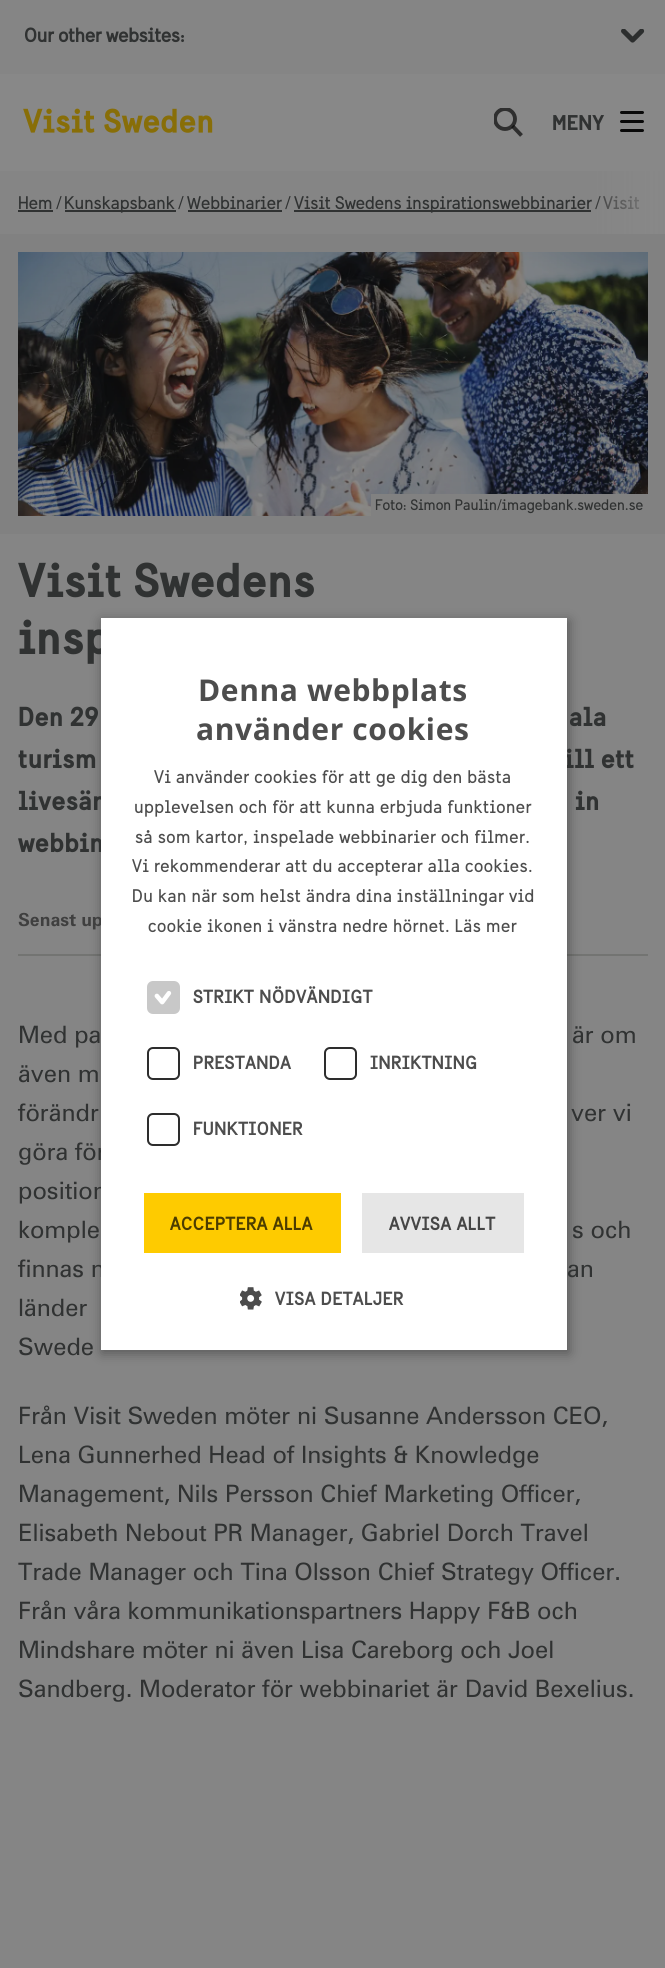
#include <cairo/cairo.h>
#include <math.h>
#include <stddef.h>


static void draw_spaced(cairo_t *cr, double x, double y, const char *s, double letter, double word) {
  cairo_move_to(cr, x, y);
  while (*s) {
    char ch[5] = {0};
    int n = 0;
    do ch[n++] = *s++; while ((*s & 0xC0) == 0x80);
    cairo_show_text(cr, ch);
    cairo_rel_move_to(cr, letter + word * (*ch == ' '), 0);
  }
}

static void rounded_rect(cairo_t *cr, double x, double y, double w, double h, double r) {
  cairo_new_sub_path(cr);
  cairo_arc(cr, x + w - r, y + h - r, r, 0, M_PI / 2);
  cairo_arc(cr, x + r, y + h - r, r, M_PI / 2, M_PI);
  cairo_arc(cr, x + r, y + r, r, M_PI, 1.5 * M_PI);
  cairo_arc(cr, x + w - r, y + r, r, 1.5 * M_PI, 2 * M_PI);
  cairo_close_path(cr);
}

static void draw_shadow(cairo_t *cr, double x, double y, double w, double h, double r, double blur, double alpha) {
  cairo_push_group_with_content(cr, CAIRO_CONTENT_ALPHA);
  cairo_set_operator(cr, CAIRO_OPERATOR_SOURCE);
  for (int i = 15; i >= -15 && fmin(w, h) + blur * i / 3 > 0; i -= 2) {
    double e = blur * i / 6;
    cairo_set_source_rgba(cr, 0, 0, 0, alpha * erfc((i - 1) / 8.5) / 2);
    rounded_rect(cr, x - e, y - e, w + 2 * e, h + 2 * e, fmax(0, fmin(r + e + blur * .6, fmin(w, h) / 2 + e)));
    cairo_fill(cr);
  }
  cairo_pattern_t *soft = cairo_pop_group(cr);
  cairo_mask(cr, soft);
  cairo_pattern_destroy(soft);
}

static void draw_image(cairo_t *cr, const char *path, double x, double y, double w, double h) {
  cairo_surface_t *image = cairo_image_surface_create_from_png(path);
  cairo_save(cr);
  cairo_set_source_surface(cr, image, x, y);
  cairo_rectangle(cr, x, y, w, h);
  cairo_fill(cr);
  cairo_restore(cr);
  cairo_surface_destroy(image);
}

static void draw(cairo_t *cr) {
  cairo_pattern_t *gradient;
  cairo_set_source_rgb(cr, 133 / 255.0, 133 / 255.0, 133 / 255.0);
  cairo_paint(cr);
  draw_image(cr, "images/1.png", 621, 29, 24, 14);
  cairo_set_source_rgb(cr, 136 / 255.0, 136 / 255.0, 136 / 255.0);
  cairo_rectangle(cr, 0, 74, 665, 97);
  cairo_fill(cr);
  draw_image(cr, "images/2.png", 23, 108, 190, 25);
  cairo_save(cr);
  cairo_rectangle(cr, 494, 108, 30, 30);
  cairo_clip(cr);
  cairo_arc(cr, 505, 119, 10, 0, 2 * M_PI);
  cairo_set_source_rgb(cr, 47 / 255.0, 47 / 255.0, 47 / 255.0);
  cairo_set_line_width(cr, 3.9);
  cairo_stroke(cr);
  cairo_restore(cr);
  cairo_new_path(cr);
  cairo_move_to(cr, 512.5, 126);
  cairo_line_to(cr, 521.5, 135.5);
  cairo_set_source_rgba(cr, 9 / 255.0, 9 / 255.0, 9 / 255.0, 0.7);
  cairo_set_line_width(cr, 3.9);
  cairo_stroke(cr);
  cairo_set_source_rgb(cr, 9 / 255.0, 9 / 255.0, 9 / 255.0);
  rounded_rect(cr, 620, 111, 24, 3, 1.5);
  cairo_fill(cr);
  rounded_rect(cr, 620, 120, 24, 3, 1.5);
  cairo_fill(cr);
  rounded_rect(cr, 620, 129, 24, 3, 1.5);
  cairo_fill(cr);
  cairo_set_source_rgb(cr, 48 / 255.0, 50 / 255.0, 50 / 255.0);
  cairo_rectangle(cr, 18, 210, 35, 2);
  cairo_fill(cr);
  cairo_rectangle(cr, 65, 210, 111, 2);
  cairo_fill(cr);
  cairo_rectangle(cr, 188, 210, 94, 2);
  cairo_fill(cr);
  cairo_rectangle(cr, 294, 210, 297, 2);
  cairo_fill(cr);
  cairo_set_source_rgb(cr, 129 / 255.0, 129 / 255.0, 129 / 255.0);
  cairo_rectangle(cr, 0, 234, 665, 300);
  cairo_fill(cr);
  draw_image(cr, "images/3.png", 18, 252, 630, 264);
  cairo_rectangle(cr, 371, 494, 277, 22);
  cairo_fill(cr);
  cairo_set_source_rgb(cr, 115 / 255.0, 116 / 255.0, 114 / 255.0);
  cairo_rectangle(cr, 18, 954, 630, 2);
  cairo_fill(cr);
  cairo_set_source_rgb(cr, 0, 0, 0);
  draw_shadow(cr, 102, 621, 467, 732, 0, 6, 0.35);
  cairo_select_font_face(cr, "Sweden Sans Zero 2", CAIRO_FONT_SLANT_NORMAL, CAIRO_FONT_WEIGHT_BOLD);
  cairo_set_font_size(cr, 19.5);
  cairo_set_source_rgb(cr, 48 / 255.0, 50 / 255.0, 50 / 255.0);
  cairo_move_to(cr, 24, 42);
  cairo_show_text(cr, "Our other websites:");
  cairo_select_font_face(cr, "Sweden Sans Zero", CAIRO_FONT_SLANT_NORMAL, CAIRO_FONT_WEIGHT_BOLD);
  cairo_set_font_size(cr, 21);
  cairo_move_to(cr, 552, 130);
  cairo_show_text(cr, "MENY");
  cairo_select_font_face(cr, "Sweden Sans Zero", CAIRO_FONT_SLANT_NORMAL, CAIRO_FONT_WEIGHT_NORMAL);
  cairo_set_font_size(cr, 18);
  cairo_move_to(cr, 18, 209);
  cairo_show_text(cr, "Hem");
  cairo_move_to(cr, 56, 209);
  cairo_show_text(cr, "/");
  cairo_move_to(cr, 64, 209);
  cairo_show_text(cr, "Kunskapsbank");
  cairo_move_to(cr, 178, 209);
  cairo_show_text(cr, "/");
  cairo_move_to(cr, 187, 209);
  cairo_show_text(cr, "Webbinarier");
  cairo_move_to(cr, 285, 209);
  cairo_show_text(cr, "/");
  cairo_move_to(cr, 294, 209);
  cairo_show_text(cr, "Visit Swedens inspirationswebbinarier");
  cairo_move_to(cr, 595, 209);
  cairo_show_text(cr, "/");
  cairo_set_source_rgb(cr, 63 / 255.0, 63 / 255.0, 63 / 255.0);
  cairo_move_to(cr, 603, 209);
  cairo_show_text(cr, "Visit");
  gradient = cairo_pattern_create_linear(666, 203, 591, 203);
  cairo_pattern_add_color_stop_rgba(gradient, 0, 136 / 255.0, 136 / 255.0, 136 / 255.0, 1);
  cairo_pattern_add_color_stop_rgba(gradient, 1, 136 / 255.0, 136 / 255.0, 136 / 255.0, 0);
  cairo_set_source(cr, gradient);
  cairo_pattern_destroy(gradient);
  cairo_rectangle(cr, 595, 171, 70, 63);
  cairo_fill(cr);
  cairo_set_font_size(cr, 15);
  cairo_set_source_rgb(cr, 48 / 255.0, 50 / 255.0, 50 / 255.0);
  cairo_move_to(cr, 375, 510);
  cairo_show_text(cr, "Foto: Simon Paulin/imagebank.sweden.se");
  cairo_select_font_face(cr, "Sweden Sans Zero", CAIRO_FONT_SLANT_NORMAL, CAIRO_FONT_WEIGHT_BOLD);
  cairo_set_font_size(cr, 48);
  cairo_move_to(cr, 18, 597);
  cairo_show_text(cr, "Visit Swedens");
  cairo_move_to(cr, 18, 654);
  cairo_show_text(cr, "insp");
  cairo_set_font_size(cr, 27);
  cairo_move_to(cr, 18, 726);
  cairo_show_text(cr, "Den 29");
  cairo_move_to(cr, 569, 726);
  cairo_show_text(cr, "ala");
  cairo_move_to(cr, 18, 768);
  cairo_show_text(cr, "turism");
  cairo_move_to(cr, 564, 768);
  cairo_show_text(cr, "ill ett");
  cairo_move_to(cr, 18, 810);
  cairo_show_text(cr, "livesän");
  cairo_move_to(cr, 575, 810);
  cairo_show_text(cr, "in");
  cairo_move_to(cr, 18, 852);
  cairo_show_text(cr, "webbin");
  cairo_select_font_face(cr, "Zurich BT", CAIRO_FONT_SLANT_NORMAL, CAIRO_FONT_WEIGHT_BOLD);
  cairo_set_font_size(cr, 18);
  cairo_set_source_rgb(cr, 63 / 255.0, 63 / 255.0, 63 / 255.0);
  cairo_move_to(cr, 18, 926);
  cairo_show_text(cr, "Senast up");
  cairo_select_font_face(cr, "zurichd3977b", CAIRO_FONT_SLANT_NORMAL, CAIRO_FONT_WEIGHT_NORMAL);
  cairo_set_font_size(cr, 24);
  cairo_set_source_rgb(cr, 48 / 255.0, 50 / 255.0, 50 / 255.0);
  cairo_move_to(cr, 18, 1043);
  cairo_show_text(cr, "Med pa");
  cairo_move_to(cr, 572, 1043);
  cairo_show_text(cr, "är om");
  cairo_move_to(cr, 18, 1082);
  cairo_show_text(cr, "även m");
  cairo_move_to(cr, 18, 1121);
  cairo_show_text(cr, "förändr");
  cairo_move_to(cr, 571, 1121);
  cairo_show_text(cr, "ver vi");
  cairo_move_to(cr, 18, 1160);
  cairo_show_text(cr, "göra för");
  cairo_move_to(cr, 18, 1199);
  cairo_show_text(cr, "position");
  cairo_move_to(cr, 18, 1238);
  cairo_show_text(cr, "komple");
  cairo_move_to(cr, 572, 1238);
  cairo_show_text(cr, "s och");
  cairo_move_to(cr, 18, 1277);
  cairo_show_text(cr, "finnas n");
  cairo_move_to(cr, 567, 1277);
  cairo_show_text(cr, "an");
  cairo_move_to(cr, 18, 1316);
  cairo_show_text(cr, "länder");
  cairo_move_to(cr, 18, 1355);
  cairo_show_text(cr, "Swede");
  cairo_move_to(cr, 18, 1424);
  cairo_show_text(cr, "Från Visit Sweden möter ni Susanne Andersson CEO,");
  cairo_move_to(cr, 18, 1463);
  cairo_show_text(cr, "Lena Gunnerhed Head of Insights & Knowledge");
  cairo_move_to(cr, 18, 1502);
  cairo_show_text(cr, "Management, Nils Persson Chief Marketing Officer,");
  cairo_move_to(cr, 18, 1541);
  cairo_show_text(cr, "Elisabeth Nebout PR Manager, Gabriel Dorch Travel");
  cairo_move_to(cr, 18, 1580);
  cairo_show_text(cr, "Trade Manager och Tina Olsson Chief Strategy Officer.");
  cairo_move_to(cr, 18, 1619);
  cairo_show_text(cr, "Från våra kommunikationspartners Happy F&B och");
  cairo_move_to(cr, 18, 1658);
  cairo_show_text(cr, "Mindshare möter ni även Lisa Careborg och Joel");
  cairo_move_to(cr, 18, 1697);
  cairo_show_text(cr, "Sandberg. Moderator för webbinariet är David Bexelius.");
  cairo_set_source_rgb(cr, 1, 1, 1);
  cairo_rectangle(cr, 101, 618, 466, 732);
  cairo_fill(cr);
  cairo_select_font_face(cr, "Open Sans", CAIRO_FONT_SLANT_NORMAL, CAIRO_FONT_WEIGHT_BOLD);
  cairo_set_font_size(cr, 30);
  cairo_set_source_rgb(cr, 77 / 255.0, 77 / 255.0, 77 / 255.0);
  draw_spaced(cr, 198, 701, "Denna webbplats", 0.6, 0);
  draw_spaced(cr, 196, 740, "använder cookies", 0.6, 0);
  cairo_select_font_face(cr, "Sweden Sans Zero", CAIRO_FONT_SLANT_NORMAL, CAIRO_FONT_WEIGHT_NORMAL);
  cairo_set_font_size(cr, 18);
  draw_spaced(cr, 154, 783, "Vi använder cookies för att ge dig den bästa", 0.45, 0);
  draw_spaced(cr, 134, 813, "upplevelsen och för att kunna erbjuda funktioner", 0.45, 0);
  draw_spaced(cr, 135, 843, "så som kartor, inspelade webbinarier och filmer.", 0.45, 0);
  draw_spaced(cr, 132, 872, "Vi rekommenderar att du accepterar alla cookies.", 0.45, 0);
  draw_spaced(cr, 132, 902, "Du kan när som helst ändra dina inställningar vid", 0.45, 0);
  draw_spaced(cr, 148, 932, "cookie ikonen i vänstra nedre hörnet. Läs mer", 0.45, 0);
  cairo_set_source_rgb(cr, 200 / 255.0, 200 / 255.0, 200 / 255.0);
  rounded_rect(cr, 147, 981, 33, 33, 6);
  cairo_fill(cr);
  draw_image(cr, "images/4.png", 154, 991, 18, 14);
  cairo_select_font_face(cr, "Sweden Sans Zero 2", CAIRO_FONT_SLANT_NORMAL, CAIRO_FONT_WEIGHT_BOLD);
  cairo_set_source_rgb(cr, 77 / 255.0, 77 / 255.0, 77 / 255.0);
  draw_spaced(cr, 193, 1003, "STRIKT NÖDVÄNDIGT", 0.8, 0);
  rounded_rect(cr, 148, 1048, 31, 31, 5);
  cairo_set_source_rgb(cr, 45 / 255.0, 45 / 255.0, 45 / 255.0);
  cairo_set_line_width(cr, 2);
  cairo_stroke(cr);
  cairo_set_source_rgb(cr, 77 / 255.0, 77 / 255.0, 77 / 255.0);
  draw_spaced(cr, 193, 1069, "PRESTANDA", 0.8, 0);
  rounded_rect(cr, 325, 1048, 31, 31, 5);
  cairo_set_source_rgb(cr, 45 / 255.0, 45 / 255.0, 45 / 255.0);
  cairo_stroke(cr);
  cairo_set_source_rgb(cr, 77 / 255.0, 77 / 255.0, 77 / 255.0);
  draw_spaced(cr, 370, 1069, "INRIKTNING", 0.8, 0);
  rounded_rect(cr, 148, 1114, 31, 31, 5);
  cairo_set_source_rgb(cr, 45 / 255.0, 45 / 255.0, 45 / 255.0);
  cairo_stroke(cr);
  cairo_set_source_rgb(cr, 77 / 255.0, 77 / 255.0, 77 / 255.0);
  draw_spaced(cr, 193, 1135, "FUNKTIONER", 0.8, 0);
  cairo_set_source_rgb(cr, 254 / 255.0, 203 / 255.0, 0);
  cairo_rectangle(cr, 144, 1193, 197, 60);
  cairo_fill(cr);
  cairo_set_source_rgb(cr, 76 / 255.0, 61 / 255.0, 0);
  draw_spaced(cr, 170, 1230, "ACCEPTERA ALLA", 0.8, 0);
  cairo_set_source_rgb(cr, 230 / 255.0, 230 / 255.0, 230 / 255.0);
  cairo_rectangle(cr, 362, 1193, 162, 60);
  cairo_fill(cr);
  cairo_set_source_rgb(cr, 69 / 255.0, 69 / 255.0, 69 / 255.0);
  draw_spaced(cr, 389, 1230, "AVVISA ALLT", 0.8, 0);
  draw_image(cr, "images/5.png", 240, 1287, 22, 23);
  cairo_set_source_rgb(cr, 77 / 255.0, 77 / 255.0, 77 / 255.0);
  draw_spaced(cr, 275, 1305, "VISA DETALJER", 0.8, 0);
}

int main(void) {
  cairo_surface_t *surface = cairo_image_surface_create(CAIRO_FORMAT_RGB24, 665, 1968);
  cairo_t *cr = cairo_create(surface);
  cairo_font_options_t *options = cairo_font_options_create();
  cairo_font_options_set_hint_metrics(options, CAIRO_HINT_METRICS_OFF);
  cairo_font_options_set_hint_style(options, CAIRO_HINT_STYLE_NONE);
  cairo_set_font_options(cr, options);
  cairo_set_miter_limit(cr, 4);
  draw(cr);
  cairo_surface_write_to_png(surface, "out.png");
  cairo_font_options_destroy(options);
  cairo_destroy(cr);
  cairo_surface_destroy(surface);
  return 0;
}
